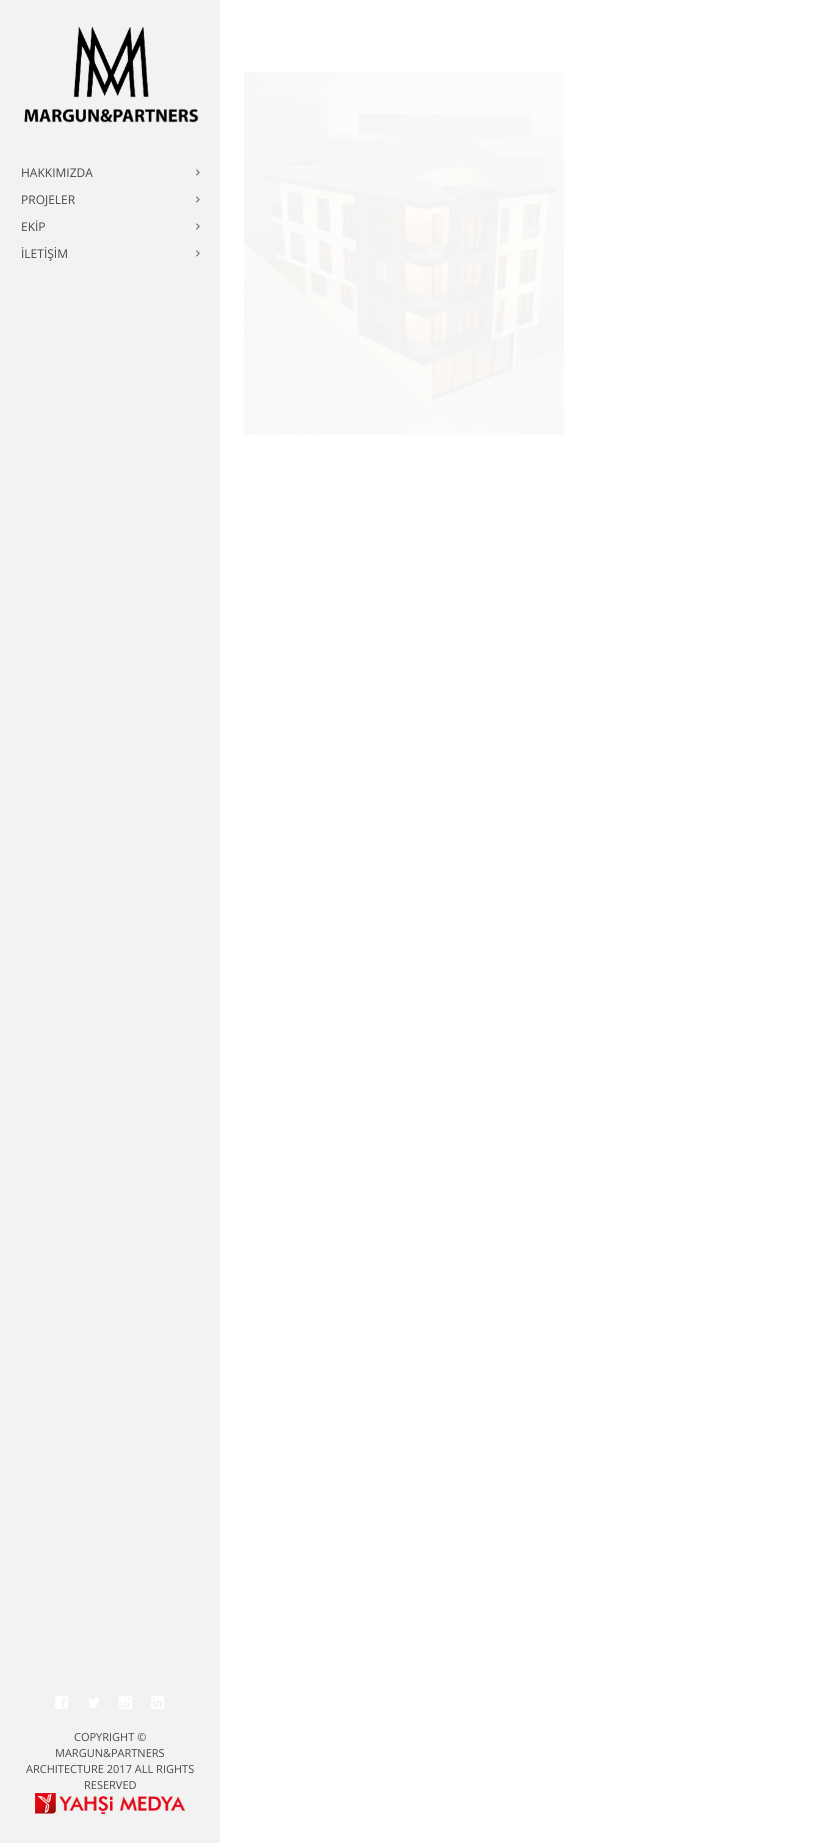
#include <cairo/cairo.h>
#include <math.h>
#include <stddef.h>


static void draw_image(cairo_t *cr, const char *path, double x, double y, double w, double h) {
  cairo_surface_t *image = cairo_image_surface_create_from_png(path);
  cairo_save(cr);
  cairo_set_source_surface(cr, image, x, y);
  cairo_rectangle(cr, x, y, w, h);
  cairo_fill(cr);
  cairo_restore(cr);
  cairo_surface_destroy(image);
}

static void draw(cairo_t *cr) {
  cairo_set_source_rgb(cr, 1, 1, 1);
  cairo_paint(cr);
  cairo_set_source_rgb(cr, 242 / 255.0, 242 / 255.0, 242 / 255.0);
  cairo_rectangle(cr, 0, 0, 220, 1843);
  cairo_fill(cr);
  draw_image(cr, "images/1.png", 24, 26, 176, 97);
  draw_image(cr, "images/2.png", 196, 169, 4, 7);
  draw_image(cr, "images/2.png", 196, 196, 4, 7);
  draw_image(cr, "images/2.png", 196, 223, 4, 7);
  draw_image(cr, "images/2.png", 196, 250, 4, 7);
  draw_image(cr, "images/3.png", 55, 1696, 13, 13);
  draw_image(cr, "images/4.png", 88, 1697, 12, 11);
  draw_image(cr, "images/5.png", 119, 1696, 13, 13);
  draw_image(cr, "images/6.png", 151, 1696, 13, 13);
  draw_image(cr, "images/7.png", 35, 1793, 150, 21);
  draw_image(cr, "images/8.png", 244, 72, 320, 363);
  cairo_select_font_face(cr, "Open Sans", CAIRO_FONT_SLANT_NORMAL, CAIRO_FONT_WEIGHT_NORMAL);
  cairo_set_font_size(cr, 12);
  cairo_set_source_rgb(cr, 71 / 255.0, 71 / 255.0, 71 / 255.0);
  cairo_move_to(cr, 21, 177);
  cairo_show_text(cr, "HAKKIMIZDA");
  cairo_move_to(cr, 21, 204);
  cairo_show_text(cr, "PROJELER");
  cairo_move_to(cr, 21, 231);
  cairo_show_text(cr, "EKİP");
  cairo_move_to(cr, 21, 258);
  cairo_show_text(cr, "İLETİŞİM");
  cairo_set_font_size(cr, 11);
  cairo_move_to(cr, 74, 1741);
  cairo_show_text(cr, "COPYRIGHT ©");
  cairo_move_to(cr, 55, 1757);
  cairo_show_text(cr, "MARGUN&PARTNERS");
  cairo_move_to(cr, 26, 1773);
  cairo_show_text(cr, "ARCHITECTURE 2017 ALL RIGHTS");
  cairo_move_to(cr, 84, 1789);
  cairo_show_text(cr, "RESERVED");
}

int main(void) {
  cairo_surface_t *surface = cairo_image_surface_create(CAIRO_FORMAT_RGB24, 829, 1843);
  cairo_t *cr = cairo_create(surface);
  cairo_font_options_t *options = cairo_font_options_create();
  cairo_font_options_set_hint_metrics(options, CAIRO_HINT_METRICS_OFF);
  cairo_font_options_set_hint_style(options, CAIRO_HINT_STYLE_NONE);
  cairo_set_font_options(cr, options);
  cairo_set_miter_limit(cr, 4);
  draw(cr);
  cairo_surface_write_to_png(surface, "out.png");
  cairo_font_options_destroy(options);
  cairo_destroy(cr);
  cairo_surface_destroy(surface);
  return 0;
}
